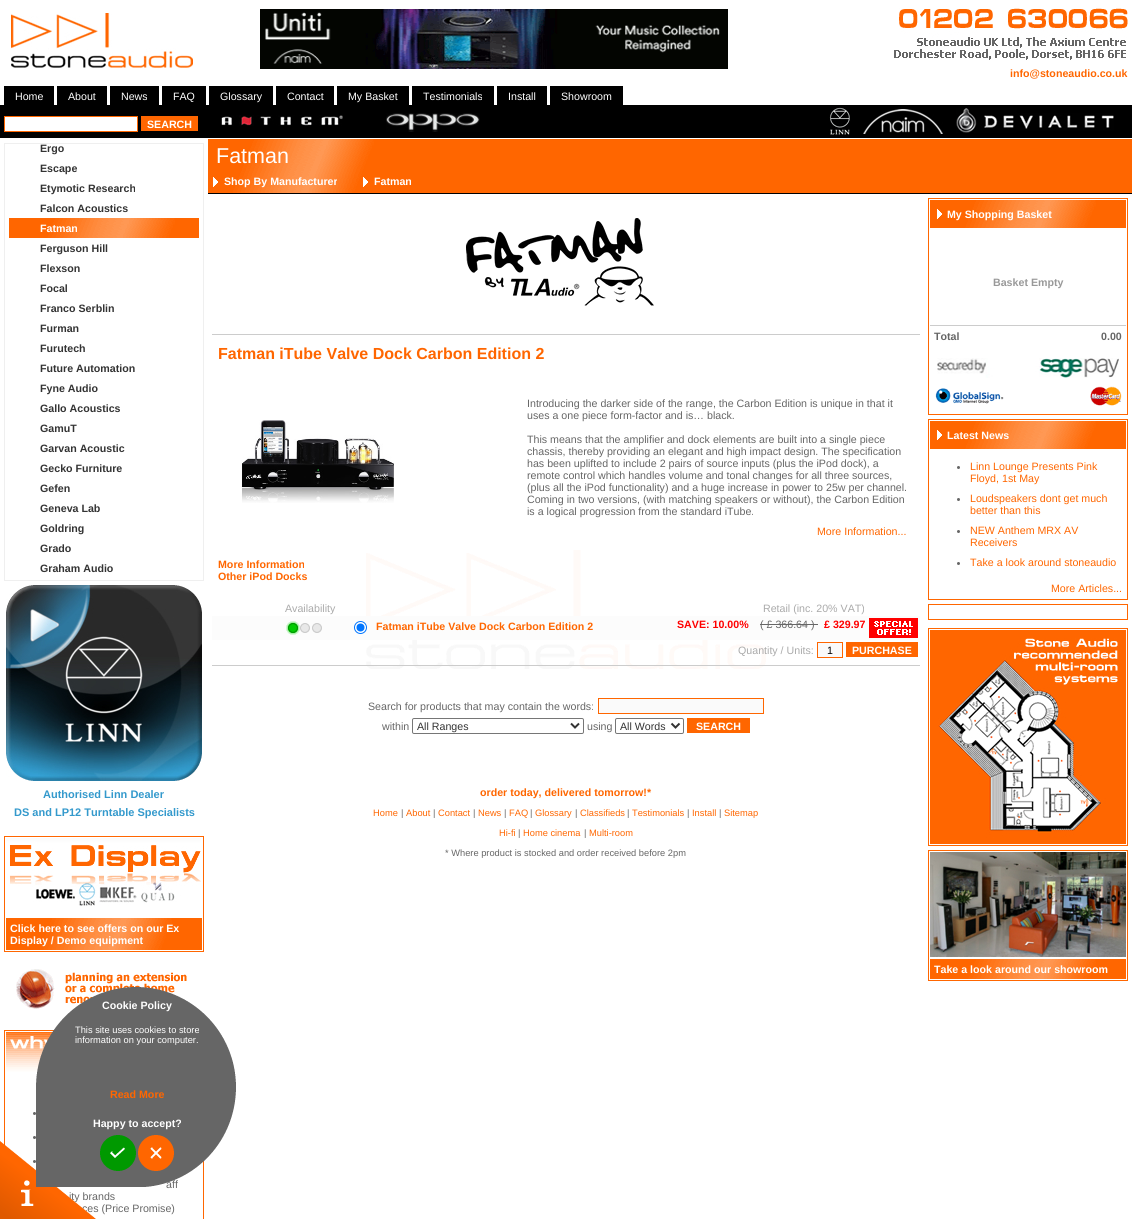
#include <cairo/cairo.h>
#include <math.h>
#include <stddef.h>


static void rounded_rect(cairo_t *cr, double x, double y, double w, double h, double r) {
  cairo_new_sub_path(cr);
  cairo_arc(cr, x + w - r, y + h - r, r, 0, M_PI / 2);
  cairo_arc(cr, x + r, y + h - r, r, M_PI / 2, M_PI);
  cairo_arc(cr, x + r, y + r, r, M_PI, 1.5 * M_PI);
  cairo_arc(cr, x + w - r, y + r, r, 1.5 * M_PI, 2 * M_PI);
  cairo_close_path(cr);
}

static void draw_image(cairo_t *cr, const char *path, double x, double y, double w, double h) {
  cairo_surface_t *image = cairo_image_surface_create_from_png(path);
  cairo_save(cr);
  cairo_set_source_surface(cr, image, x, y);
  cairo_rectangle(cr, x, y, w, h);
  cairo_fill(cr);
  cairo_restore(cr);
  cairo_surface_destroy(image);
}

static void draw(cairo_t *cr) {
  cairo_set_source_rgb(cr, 1, 1, 1);
  cairo_paint(cr);
  draw_image(cr, "images/1.png", 366, 550, 400, 119);
  draw_image(cr, "images/2.png", 10, 13, 183, 56);
  draw_image(cr, "images/3.png", 260, 9, 468, 60);
  draw_image(cr, "images/4.png", 894, 8, 234, 52);
  cairo_set_source_rgb(cr, 0, 0, 0);
  cairo_rectangle(cr, 0, 105, 1132, 33);
  cairo_fill(cr);
  cairo_rectangle(cr, 4, 86, 50, 19);
  cairo_fill(cr);
  cairo_rectangle(cr, 57, 86, 50, 19);
  cairo_fill(cr);
  cairo_rectangle(cr, 110, 86, 49, 19);
  cairo_fill(cr);
  cairo_rectangle(cr, 162, 86, 44, 19);
  cairo_fill(cr);
  cairo_rectangle(cr, 209, 86, 64, 19);
  cairo_fill(cr);
  cairo_rectangle(cr, 276, 86, 58, 19);
  cairo_fill(cr);
  cairo_rectangle(cr, 337, 86, 72, 19);
  cairo_fill(cr);
  cairo_rectangle(cr, 412, 86, 82, 19);
  cairo_fill(cr);
  cairo_rectangle(cr, 497, 86, 50, 19);
  cairo_fill(cr);
  cairo_rectangle(cr, 550, 86, 73, 19);
  cairo_fill(cr);
  cairo_set_source_rgb(cr, 1, 1, 1);
  cairo_rectangle(cr, 4.5, 116.5, 133, 15);
  cairo_fill_preserve(cr);
  cairo_set_source_rgb(cr, 1, 102 / 255.0, 0);
  cairo_set_line_width(cr, 1);
  cairo_stroke(cr);
  cairo_rectangle(cr, 141, 116, 57, 15);
  cairo_fill(cr);
  draw_image(cr, "images/5.png", 221, 115, 122, 11);
  draw_image(cr, "images/6.png", 386, 113, 94, 19);
  draw_image(cr, "images/7.png", 829, 107, 21, 28);
  draw_image(cr, "images/8.png", 863, 109, 80, 25);
  draw_image(cr, "images/9.png", 956, 108, 158, 25);
  cairo_rectangle(cr, 4.5, 143.5, 199, 437);
  cairo_set_source_rgb(cr, 239 / 255.0, 239 / 255.0, 239 / 255.0);
  cairo_stroke(cr);
  cairo_set_source_rgb(cr, 1, 102 / 255.0, 0);
  cairo_rectangle(cr, 9, 218, 190, 20);
  cairo_fill(cr);
  draw_image(cr, "images/10.png", 47, 218, 128, 20);
  draw_image(cr, "images/11.png", 6, 585, 196, 196);
  cairo_rectangle(cr, 4.5, 836.5, 199, 115);
  cairo_stroke(cr);
  draw_image(cr, "images/12.png", 6, 838, 195, 68);
  cairo_rectangle(cr, 6, 918, 196, 32);
  cairo_fill(cr);
  draw_image(cr, "images/13.png", 40, 918, 132, 32);
  draw_image(cr, "images/14.png", 16, 969, 171, 40);
  cairo_rectangle(cr, 4.5, 1030.5, 199, 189);
  cairo_stroke(cr);
  draw_image(cr, "images/15.png", 6, 1032, 47, 61);
  cairo_set_source_rgb(cr, 102 / 255.0, 102 / 255.0, 102 / 255.0);
  cairo_arc(cr, 34.5, 1113.5, 1.5, 0, 2 * M_PI);
  cairo_fill(cr);
  cairo_arc(cr, 34.5, 1137.5, 1.5, 0, 2 * M_PI);
  cairo_fill(cr);
  cairo_arc(cr, 34.5, 1161.5, 1.5, 0, 2 * M_PI);
  cairo_fill(cr);
  cairo_set_source_rgb(cr, 1, 102 / 255.0, 0);
  cairo_rectangle(cr, 208, 139, 924, 54);
  cairo_fill(cr);
  draw_image(cr, "images/16.png", 232, 139, 142, 54);
  cairo_set_source_rgb(cr, 0, 0, 0);
  cairo_rectangle(cr, 208, 193, 924, 1);
  cairo_fill(cr);
  draw_image(cr, "images/17.png", 213, 177, 5, 10);
  draw_image(cr, "images/17.png", 363, 177, 5, 10);
  draw_image(cr, "images/18.png", 466, 218, 188, 88);
  cairo_set_source_rgb(cr, 204 / 255.0, 204 / 255.0, 204 / 255.0);
  cairo_rectangle(cr, 212, 334, 708, 1);
  cairo_fill(cr);
  draw_image(cr, "images/19.png", 241, 420, 153, 83);
  cairo_set_source_rgb(cr, 252 / 255.0, 252 / 255.0, 252 / 255.0);
  cairo_rectangle(cr, 212, 616, 708, 24);
  cairo_fill(cr);
  draw_image(cr, "images/20.png", 286, 621, 36, 14);
  cairo_set_source_rgb(cr, 1, 1, 1);
  cairo_arc(cr, 360.5, 627.5, 6, 0, 2 * M_PI);
  cairo_fill_preserve(cr);
  cairo_set_source_rgb(cr, 0, 117 / 255.0, 1);
  cairo_stroke(cr);
  cairo_arc(cr, 360.5, 627.5, 4, 0, 2 * M_PI);
  cairo_fill(cr);
  cairo_set_source_rgb(cr, 102 / 255.0, 102 / 255.0, 102 / 255.0);
  cairo_rectangle(cr, 760, 624, 58, 1);
  cairo_fill(cr);
  draw_image(cr, "images/21.png", 869, 618, 49, 20);
  cairo_set_source_rgb(cr, 250 / 255.0, 250 / 255.0, 250 / 255.0);
  cairo_rectangle(cr, 817.5, 642.5, 25, 15);
  cairo_fill_preserve(cr);
  cairo_set_source_rgb(cr, 1, 102 / 255.0, 0);
  cairo_stroke(cr);
  cairo_rectangle(cr, 846, 642, 72, 15);
  cairo_fill(cr);
  cairo_set_source_rgb(cr, 204 / 255.0, 204 / 255.0, 204 / 255.0);
  cairo_rectangle(cr, 212, 665, 708, 1);
  cairo_fill(cr);
  cairo_set_source_rgb(cr, 250 / 255.0, 250 / 255.0, 250 / 255.0);
  cairo_rectangle(cr, 598.5, 698.5, 165, 15);
  cairo_fill_preserve(cr);
  cairo_set_source_rgb(cr, 1, 102 / 255.0, 0);
  cairo_stroke(cr);
  rounded_rect(cr, 412.5, 718.5, 171, 15, 1.5);
  cairo_set_source_rgb(cr, 118 / 255.0, 118 / 255.0, 118 / 255.0);
  cairo_stroke(cr);
  cairo_new_path(cr);
  cairo_move_to(cr, 571, 723.5);
  cairo_line_to(cr, 575, 727.5);
  cairo_line_to(cr, 579, 723.5);
  cairo_set_source_rgb(cr, 51 / 255.0, 51 / 255.0, 51 / 255.0);
  cairo_set_line_width(cr, 2);
  cairo_stroke(cr);
  rounded_rect(cr, 615.5, 718.5, 68, 15, 1.5);
  cairo_set_source_rgb(cr, 118 / 255.0, 118 / 255.0, 118 / 255.0);
  cairo_set_line_width(cr, 1);
  cairo_stroke(cr);
  cairo_new_path(cr);
  cairo_move_to(cr, 671.5, 723.5);
  cairo_line_to(cr, 675.5, 727.5);
  cairo_line_to(cr, 679.5, 723.5);
  cairo_set_source_rgb(cr, 51 / 255.0, 51 / 255.0, 51 / 255.0);
  cairo_set_line_width(cr, 2);
  cairo_stroke(cr);
  cairo_set_source_rgb(cr, 1, 102 / 255.0, 0);
  cairo_rectangle(cr, 687, 718, 63, 15);
  cairo_fill(cr);
  cairo_rectangle(cr, 928.5, 198.5, 199, 216);
  cairo_set_line_width(cr, 1);
  cairo_stroke(cr);
  cairo_rectangle(cr, 930, 200, 196, 28);
  cairo_fill(cr);
  draw_image(cr, "images/22.png", 965, 200, 131, 28);
  draw_image(cr, "images/17.png", 937, 209, 5, 10);
  cairo_set_source_rgb(cr, 204 / 255.0, 204 / 255.0, 204 / 255.0);
  cairo_rectangle(cr, 930, 325, 196, 1);
  cairo_fill(cr);
  draw_image(cr, "images/23.png", 937, 358, 182, 20);
  draw_image(cr, "images/24.png", 935, 386, 187, 20);
  cairo_rectangle(cr, 928.5, 419.5, 199, 180);
  cairo_set_source_rgb(cr, 1, 102 / 255.0, 0);
  cairo_stroke(cr);
  cairo_rectangle(cr, 930, 421, 196, 28);
  cairo_fill(cr);
  draw_image(cr, "images/22.png", 965, 421, 131, 28);
  draw_image(cr, "images/17.png", 937, 430, 5, 10);
  cairo_set_source_rgb(cr, 102 / 255.0, 102 / 255.0, 102 / 255.0);
  cairo_arc(cr, 958.5, 467.5, 1.5, 0, 2 * M_PI);
  cairo_fill(cr);
  cairo_arc(cr, 958.5, 499.5, 1.5, 0, 2 * M_PI);
  cairo_fill(cr);
  cairo_arc(cr, 958.5, 531.5, 1.5, 0, 2 * M_PI);
  cairo_fill(cr);
  cairo_arc(cr, 958.5, 563.5, 1.5, 0, 2 * M_PI);
  cairo_fill(cr);
  cairo_rectangle(cr, 928.5, 604.5, 199, 15);
  cairo_set_source_rgb(cr, 1, 102 / 255.0, 0);
  cairo_stroke(cr);
  cairo_rectangle(cr, 928.5, 628.5, 199, 217);
  cairo_stroke(cr);
  draw_image(cr, "images/25.png", 930, 630, 196, 214);
  cairo_rectangle(cr, 928.5, 850.5, 199, 130);
  cairo_stroke(cr);
  draw_image(cr, "images/26.png", 930, 852, 196, 105);
  cairo_rectangle(cr, 930, 959, 196, 20);
  cairo_fill(cr);
  draw_image(cr, "images/10.png", 968, 959, 128, 20);
  cairo_select_font_face(cr, "Liberation Sans", CAIRO_FONT_SLANT_NORMAL, CAIRO_FONT_WEIGHT_BOLD);
  cairo_set_font_size(cr, 10.65);
  cairo_move_to(cr, 1010, 77);
  cairo_show_text(cr, "info@stoneaudio.co.uk");
  cairo_select_font_face(cr, "Liberation Sans", CAIRO_FONT_SLANT_NORMAL, CAIRO_FONT_WEIGHT_NORMAL);
  cairo_set_source_rgb(cr, 1, 1, 1);
  cairo_move_to(cr, 15, 100);
  cairo_show_text(cr, "Home");
  cairo_move_to(cr, 68, 100);
  cairo_show_text(cr, "About");
  cairo_move_to(cr, 121, 100);
  cairo_show_text(cr, "News");
  cairo_move_to(cr, 173, 100);
  cairo_show_text(cr, "FAQ");
  cairo_move_to(cr, 220, 100);
  cairo_show_text(cr, "Glossary");
  cairo_move_to(cr, 287, 100);
  cairo_show_text(cr, "Contact");
  cairo_move_to(cr, 348, 100);
  cairo_show_text(cr, "My Basket");
  cairo_move_to(cr, 423, 100);
  cairo_show_text(cr, "Testimonials");
  cairo_move_to(cr, 508, 100);
  cairo_show_text(cr, "Install");
  cairo_move_to(cr, 561, 100);
  cairo_show_text(cr, "Showroom");
  cairo_select_font_face(cr, "Liberation Sans", CAIRO_FONT_SLANT_NORMAL, CAIRO_FONT_WEIGHT_BOLD);
  cairo_move_to(cr, 147, 128);
  cairo_show_text(cr, "SEARCH");
  cairo_set_source_rgb(cr, 51 / 255.0, 51 / 255.0, 51 / 255.0);
  cairo_move_to(cr, 40, 152);
  cairo_show_text(cr, "Ergo");
  cairo_move_to(cr, 40, 172);
  cairo_show_text(cr, "Escape");
  cairo_move_to(cr, 40, 192);
  cairo_show_text(cr, "Etymotic Research");
  cairo_move_to(cr, 40, 212);
  cairo_show_text(cr, "Falcon Acoustics");
  cairo_set_source_rgb(cr, 1, 1, 1);
  cairo_move_to(cr, 40, 232);
  cairo_show_text(cr, "Fatman");
  cairo_set_source_rgb(cr, 51 / 255.0, 51 / 255.0, 51 / 255.0);
  cairo_move_to(cr, 40, 252);
  cairo_show_text(cr, "Ferguson Hill");
  cairo_move_to(cr, 40, 272);
  cairo_show_text(cr, "Flexson");
  cairo_move_to(cr, 40, 292);
  cairo_show_text(cr, "Focal");
  cairo_move_to(cr, 40, 312);
  cairo_show_text(cr, "Franco Serblin");
  cairo_move_to(cr, 40, 332);
  cairo_show_text(cr, "Furman");
  cairo_move_to(cr, 40, 352);
  cairo_show_text(cr, "Furutech");
  cairo_move_to(cr, 40, 372);
  cairo_show_text(cr, "Future Automation");
  cairo_move_to(cr, 40, 392);
  cairo_show_text(cr, "Fyne Audio");
  cairo_move_to(cr, 40, 412);
  cairo_show_text(cr, "Gallo Acoustics");
  cairo_move_to(cr, 40, 432);
  cairo_show_text(cr, "GamuT");
  cairo_move_to(cr, 40, 452);
  cairo_show_text(cr, "Garvan Acoustic");
  cairo_move_to(cr, 40, 472);
  cairo_show_text(cr, "Gecko Furniture");
  cairo_move_to(cr, 40, 492);
  cairo_show_text(cr, "Gefen");
  cairo_move_to(cr, 40, 512);
  cairo_show_text(cr, "Geneva Lab");
  cairo_move_to(cr, 40, 532);
  cairo_show_text(cr, "Goldring");
  cairo_move_to(cr, 40, 552);
  cairo_show_text(cr, "Grado");
  cairo_move_to(cr, 40, 572);
  cairo_show_text(cr, "Graham Audio");
  cairo_set_font_size(cr, 11);
  cairo_set_source_rgb(cr, 51 / 255.0, 153 / 255.0, 204 / 255.0);
  cairo_move_to(cr, 43, 798);
  cairo_show_text(cr, "Authorised Linn Dealer");
  cairo_move_to(cr, 14, 816);
  cairo_show_text(cr, "DS and LP12 Turntable Specialists");
  cairo_set_font_size(cr, 10.65);
  cairo_set_source_rgb(cr, 1, 1, 1);
  cairo_move_to(cr, 10, 932);
  cairo_show_text(cr, "Click here to see offers on our Ex");
  cairo_move_to(cr, 10, 944);
  cairo_show_text(cr, "Display / Demo equipment");
  cairo_select_font_face(cr, "Liberation Sans", CAIRO_FONT_SLANT_NORMAL, CAIRO_FONT_WEIGHT_NORMAL);
  cairo_set_source_rgb(cr, 102 / 255.0, 102 / 255.0, 102 / 255.0);
  cairo_move_to(cr, 166, 1188);
  cairo_show_text(cr, "aff");
  cairo_move_to(cr, 69, 1200);
  cairo_show_text(cr, "ity brands");
  cairo_move_to(cr, 82, 1212);
  cairo_show_text(cr, "ces (Price Promise)");
  cairo_set_font_size(cr, 21.5);
  cairo_set_source_rgb(cr, 1, 1, 1);
  cairo_move_to(cr, 216, 163);
  cairo_show_text(cr, "Fatman");
  cairo_select_font_face(cr, "Liberation Sans", CAIRO_FONT_SLANT_NORMAL, CAIRO_FONT_WEIGHT_BOLD);
  cairo_set_font_size(cr, 10.65);
  cairo_move_to(cr, 224, 185);
  cairo_show_text(cr, "Shop By Manufacturer");
  cairo_move_to(cr, 374, 185);
  cairo_show_text(cr, "Fatman");
  cairo_set_font_size(cr, 16);
  cairo_set_source_rgb(cr, 1, 102 / 255.0, 0);
  cairo_move_to(cr, 218, 359);
  cairo_show_text(cr, "Fatman iTube Valve Dock Carbon Edition 2");
  cairo_select_font_face(cr, "Liberation Sans", CAIRO_FONT_SLANT_NORMAL, CAIRO_FONT_WEIGHT_NORMAL);
  cairo_set_font_size(cr, 10.65);
  cairo_set_source_rgb(cr, 102 / 255.0, 102 / 255.0, 102 / 255.0);
  cairo_move_to(cr, 527, 407);
  cairo_show_text(cr, "Introducing the darker side of the range, the Carbon Edition is unique in that it");
  cairo_move_to(cr, 527, 419);
  cairo_show_text(cr, "uses a one piece form-factor and is… black.");
  cairo_move_to(cr, 527, 443);
  cairo_show_text(cr, "This means that the amplifier and dock elements are built into a single piece");
  cairo_move_to(cr, 527, 455);
  cairo_show_text(cr, "chassis, thereby providing an elegant and high impact design. The specification");
  cairo_move_to(cr, 527, 467);
  cairo_show_text(cr, "has been uplifted to include 2 pairs of source inputs (plus the iPod dock), a");
  cairo_move_to(cr, 527, 479);
  cairo_show_text(cr, "remote control which handles volume and tonal changes for all three sources,");
  cairo_move_to(cr, 527, 491);
  cairo_show_text(cr, "(plus all the iPod functionality) and a huge increase in power to 25w per channel.");
  cairo_move_to(cr, 527, 503);
  cairo_show_text(cr, "Coming in two versions, (with matching speakers or without), the Carbon Edition");
  cairo_move_to(cr, 527, 515);
  cairo_show_text(cr, "is a logical progression from the standard iTube.");
  cairo_set_source_rgb(cr, 1, 102 / 255.0, 0);
  cairo_move_to(cr, 817, 535);
  cairo_show_text(cr, "More Information...");
  cairo_select_font_face(cr, "Liberation Sans", CAIRO_FONT_SLANT_NORMAL, CAIRO_FONT_WEIGHT_BOLD);
  cairo_move_to(cr, 218, 568);
  cairo_show_text(cr, "More Information");
  cairo_move_to(cr, 218, 580);
  cairo_show_text(cr, "Other iPod Docks");
  cairo_select_font_face(cr, "Liberation Sans", CAIRO_FONT_SLANT_NORMAL, CAIRO_FONT_WEIGHT_NORMAL);
  cairo_set_source_rgb(cr, 170 / 255.0, 170 / 255.0, 170 / 255.0);
  cairo_move_to(cr, 285, 612);
  cairo_show_text(cr, "Availability");
  cairo_move_to(cr, 763, 612);
  cairo_show_text(cr, "Retail (inc. 20% VAT)");
  cairo_select_font_face(cr, "Liberation Sans", CAIRO_FONT_SLANT_NORMAL, CAIRO_FONT_WEIGHT_BOLD);
  cairo_set_source_rgb(cr, 1, 102 / 255.0, 0);
  cairo_move_to(cr, 376, 630);
  cairo_show_text(cr, "Fatman iTube Valve Dock Carbon Edition 2");
  cairo_set_source_rgb(cr, 1, 0, 0);
  cairo_move_to(cr, 677, 628);
  cairo_show_text(cr, "SAVE: 10.00%");
  cairo_select_font_face(cr, "Liberation Sans", CAIRO_FONT_SLANT_NORMAL, CAIRO_FONT_WEIGHT_NORMAL);
  cairo_set_source_rgb(cr, 102 / 255.0, 102 / 255.0, 102 / 255.0);
  cairo_move_to(cr, 760, 628);
  cairo_show_text(cr, "( £ 366.64 )");
  cairo_select_font_face(cr, "Liberation Sans", CAIRO_FONT_SLANT_NORMAL, CAIRO_FONT_WEIGHT_BOLD);
  cairo_set_source_rgb(cr, 1, 0, 0);
  cairo_move_to(cr, 824, 628);
  cairo_show_text(cr, "£ 329.97");
  cairo_select_font_face(cr, "Liberation Sans", CAIRO_FONT_SLANT_NORMAL, CAIRO_FONT_WEIGHT_NORMAL);
  cairo_set_source_rgb(cr, 170 / 255.0, 170 / 255.0, 170 / 255.0);
  cairo_move_to(cr, 738, 654);
  cairo_show_text(cr, "Quantity / Units:");
  cairo_set_source_rgb(cr, 0, 0, 0);
  cairo_move_to(cr, 827, 654);
  cairo_show_text(cr, "1");
  cairo_select_font_face(cr, "Liberation Sans", CAIRO_FONT_SLANT_NORMAL, CAIRO_FONT_WEIGHT_BOLD);
  cairo_set_source_rgb(cr, 1, 1, 1);
  cairo_move_to(cr, 852, 654);
  cairo_show_text(cr, "PURCHASE");
  cairo_select_font_face(cr, "Liberation Sans", CAIRO_FONT_SLANT_NORMAL, CAIRO_FONT_WEIGHT_NORMAL);
  cairo_set_source_rgb(cr, 102 / 255.0, 102 / 255.0, 102 / 255.0);
  cairo_move_to(cr, 368, 710);
  cairo_show_text(cr, "Search for products that may contain the words:");
  cairo_move_to(cr, 382, 730);
  cairo_show_text(cr, "within");
  cairo_set_source_rgb(cr, 51 / 255.0, 51 / 255.0, 51 / 255.0);
  cairo_move_to(cr, 417, 730);
  cairo_show_text(cr, "All Ranges");
  cairo_set_source_rgb(cr, 102 / 255.0, 102 / 255.0, 102 / 255.0);
  cairo_move_to(cr, 587, 730);
  cairo_show_text(cr, "using");
  cairo_set_source_rgb(cr, 51 / 255.0, 51 / 255.0, 51 / 255.0);
  cairo_move_to(cr, 620, 730);
  cairo_show_text(cr, "All Words");
  cairo_select_font_face(cr, "Liberation Sans", CAIRO_FONT_SLANT_NORMAL, CAIRO_FONT_WEIGHT_BOLD);
  cairo_set_source_rgb(cr, 1, 1, 1);
  cairo_move_to(cr, 696, 730);
  cairo_show_text(cr, "SEARCH");
  cairo_set_source_rgb(cr, 1, 102 / 255.0, 0);
  cairo_move_to(cr, 480, 796);
  cairo_show_text(cr, "order today, delivered tomorrow!*");
  cairo_select_font_face(cr, "Liberation Sans", CAIRO_FONT_SLANT_NORMAL, CAIRO_FONT_WEIGHT_NORMAL);
  cairo_set_font_size(cr, 9.3);
  cairo_move_to(cr, 373, 816);
  cairo_show_text(cr, "Home");
  cairo_set_source_rgb(cr, 102 / 255.0, 102 / 255.0, 102 / 255.0);
  cairo_move_to(cr, 401, 816);
  cairo_show_text(cr, "|");
  cairo_set_source_rgb(cr, 1, 102 / 255.0, 0);
  cairo_move_to(cr, 406, 816);
  cairo_show_text(cr, "About");
  cairo_set_source_rgb(cr, 102 / 255.0, 102 / 255.0, 102 / 255.0);
  cairo_move_to(cr, 433, 816);
  cairo_show_text(cr, "|");
  cairo_set_source_rgb(cr, 1, 102 / 255.0, 0);
  cairo_move_to(cr, 438, 816);
  cairo_show_text(cr, "Contact");
  cairo_set_source_rgb(cr, 102 / 255.0, 102 / 255.0, 102 / 255.0);
  cairo_move_to(cr, 473, 816);
  cairo_show_text(cr, "|");
  cairo_set_source_rgb(cr, 1, 102 / 255.0, 0);
  cairo_move_to(cr, 478, 816);
  cairo_show_text(cr, "News");
  cairo_set_source_rgb(cr, 102 / 255.0, 102 / 255.0, 102 / 255.0);
  cairo_move_to(cr, 504, 816);
  cairo_show_text(cr, "|");
  cairo_set_source_rgb(cr, 1, 102 / 255.0, 0);
  cairo_move_to(cr, 509, 816);
  cairo_show_text(cr, "FAQ");
  cairo_set_source_rgb(cr, 102 / 255.0, 102 / 255.0, 102 / 255.0);
  cairo_move_to(cr, 530, 816);
  cairo_show_text(cr, "|");
  cairo_set_source_rgb(cr, 1, 102 / 255.0, 0);
  cairo_move_to(cr, 535, 816);
  cairo_show_text(cr, "Glossary");
  cairo_set_source_rgb(cr, 102 / 255.0, 102 / 255.0, 102 / 255.0);
  cairo_move_to(cr, 575, 816);
  cairo_show_text(cr, "|");
  cairo_set_source_rgb(cr, 1, 102 / 255.0, 0);
  cairo_move_to(cr, 580, 816);
  cairo_show_text(cr, "Classifieds");
  cairo_set_source_rgb(cr, 102 / 255.0, 102 / 255.0, 102 / 255.0);
  cairo_move_to(cr, 627, 816);
  cairo_show_text(cr, "|");
  cairo_set_source_rgb(cr, 1, 102 / 255.0, 0);
  cairo_move_to(cr, 632, 816);
  cairo_show_text(cr, "Testimonials");
  cairo_set_source_rgb(cr, 102 / 255.0, 102 / 255.0, 102 / 255.0);
  cairo_move_to(cr, 687, 816);
  cairo_show_text(cr, "|");
  cairo_set_source_rgb(cr, 1, 102 / 255.0, 0);
  cairo_move_to(cr, 692, 816);
  cairo_show_text(cr, "Install");
  cairo_set_source_rgb(cr, 102 / 255.0, 102 / 255.0, 102 / 255.0);
  cairo_move_to(cr, 719, 816);
  cairo_show_text(cr, "|");
  cairo_set_source_rgb(cr, 1, 102 / 255.0, 0);
  cairo_move_to(cr, 724, 816);
  cairo_show_text(cr, "Sitemap");
  cairo_move_to(cr, 499, 836);
  cairo_show_text(cr, "Hi-fi");
  cairo_set_source_rgb(cr, 102 / 255.0, 102 / 255.0, 102 / 255.0);
  cairo_move_to(cr, 518, 836);
  cairo_show_text(cr, "|");
  cairo_set_source_rgb(cr, 1, 102 / 255.0, 0);
  cairo_move_to(cr, 523, 836);
  cairo_show_text(cr, "Home cinema");
  cairo_set_source_rgb(cr, 102 / 255.0, 102 / 255.0, 102 / 255.0);
  cairo_move_to(cr, 584, 836);
  cairo_show_text(cr, "|");
  cairo_set_source_rgb(cr, 1, 102 / 255.0, 0);
  cairo_move_to(cr, 589, 836);
  cairo_show_text(cr, "Multi-room");
  cairo_set_source_rgb(cr, 102 / 255.0, 102 / 255.0, 102 / 255.0);
  cairo_move_to(cr, 445, 856);
  cairo_show_text(cr, "* Where product is stocked and order received before 2pm");
  cairo_select_font_face(cr, "Liberation Sans", CAIRO_FONT_SLANT_NORMAL, CAIRO_FONT_WEIGHT_BOLD);
  cairo_set_font_size(cr, 10.65);
  cairo_set_source_rgb(cr, 1, 1, 1);
  cairo_move_to(cr, 947, 218);
  cairo_show_text(cr, "My Shopping Basket");
  cairo_set_source_rgb(cr, 153 / 255.0, 153 / 255.0, 153 / 255.0);
  cairo_move_to(cr, 993, 286);
  cairo_show_text(cr, "Basket Empty");
  cairo_set_source_rgb(cr, 102 / 255.0, 102 / 255.0, 102 / 255.0);
  cairo_move_to(cr, 934, 340);
  cairo_show_text(cr, "Total");
  cairo_move_to(cr, 1101, 340);
  cairo_show_text(cr, "0.00");
  cairo_set_source_rgb(cr, 1, 1, 1);
  cairo_move_to(cr, 947, 439);
  cairo_show_text(cr, "Latest News");
  cairo_select_font_face(cr, "Liberation Sans", CAIRO_FONT_SLANT_NORMAL, CAIRO_FONT_WEIGHT_NORMAL);
  cairo_set_source_rgb(cr, 1, 102 / 255.0, 0);
  cairo_move_to(cr, 970, 470);
  cairo_show_text(cr, "Linn Lounge Presents Pink");
  cairo_move_to(cr, 970, 482);
  cairo_show_text(cr, "Floyd, 1st May");
  cairo_move_to(cr, 970, 502);
  cairo_show_text(cr, "Loudspeakers dont get much");
  cairo_move_to(cr, 970, 514);
  cairo_show_text(cr, "better than this");
  cairo_move_to(cr, 970, 534);
  cairo_show_text(cr, "NEW Anthem MRX AV");
  cairo_move_to(cr, 970, 546);
  cairo_show_text(cr, "Receivers");
  cairo_move_to(cr, 970, 566);
  cairo_show_text(cr, "Take a look around stoneaudio");
  cairo_move_to(cr, 1051, 592);
  cairo_show_text(cr, "More Articles...");
  cairo_select_font_face(cr, "Liberation Sans", CAIRO_FONT_SLANT_NORMAL, CAIRO_FONT_WEIGHT_BOLD);
  cairo_set_source_rgb(cr, 1, 1, 1);
  cairo_move_to(cr, 934, 973);
  cairo_show_text(cr, "Take a look around our showroom");
  draw_image(cr, "images/27.png", 0, 987, 236, 232);
  cairo_move_to(cr, 102, 1009);
  cairo_show_text(cr, "Cookie Policy");
  cairo_select_font_face(cr, "Liberation Sans", CAIRO_FONT_SLANT_NORMAL, CAIRO_FONT_WEIGHT_NORMAL);
  cairo_set_font_size(cr, 9.3);
  cairo_move_to(cr, 75, 1033);
  cairo_show_text(cr, "This site uses cookies to store");
  cairo_move_to(cr, 75, 1043);
  cairo_show_text(cr, "information on your computer.");
  cairo_select_font_face(cr, "Liberation Sans", CAIRO_FONT_SLANT_NORMAL, CAIRO_FONT_WEIGHT_BOLD);
  cairo_set_font_size(cr, 10.65);
  cairo_set_source_rgb(cr, 1, 102 / 255.0, 0);
  cairo_move_to(cr, 110, 1098);
  cairo_show_text(cr, "Read More");
  cairo_set_source_rgb(cr, 1, 1, 1);
  cairo_move_to(cr, 93, 1127);
  cairo_show_text(cr, "Happy to accept?");
  draw_image(cr, "images/28.png", 100, 1135, 36, 36);
  draw_image(cr, "images/29.png", 138, 1135, 36, 36);
}

int main(void) {
  cairo_surface_t *surface = cairo_image_surface_create(CAIRO_FORMAT_RGB24, 1132, 1219);
  cairo_t *cr = cairo_create(surface);
  cairo_font_options_t *options = cairo_font_options_create();
  cairo_font_options_set_hint_metrics(options, CAIRO_HINT_METRICS_OFF);
  cairo_font_options_set_hint_style(options, CAIRO_HINT_STYLE_NONE);
  cairo_set_font_options(cr, options);
  cairo_set_miter_limit(cr, 4);
  draw(cr);
  cairo_surface_write_to_png(surface, "out.png");
  cairo_font_options_destroy(options);
  cairo_destroy(cr);
  cairo_surface_destroy(surface);
  return 0;
}
